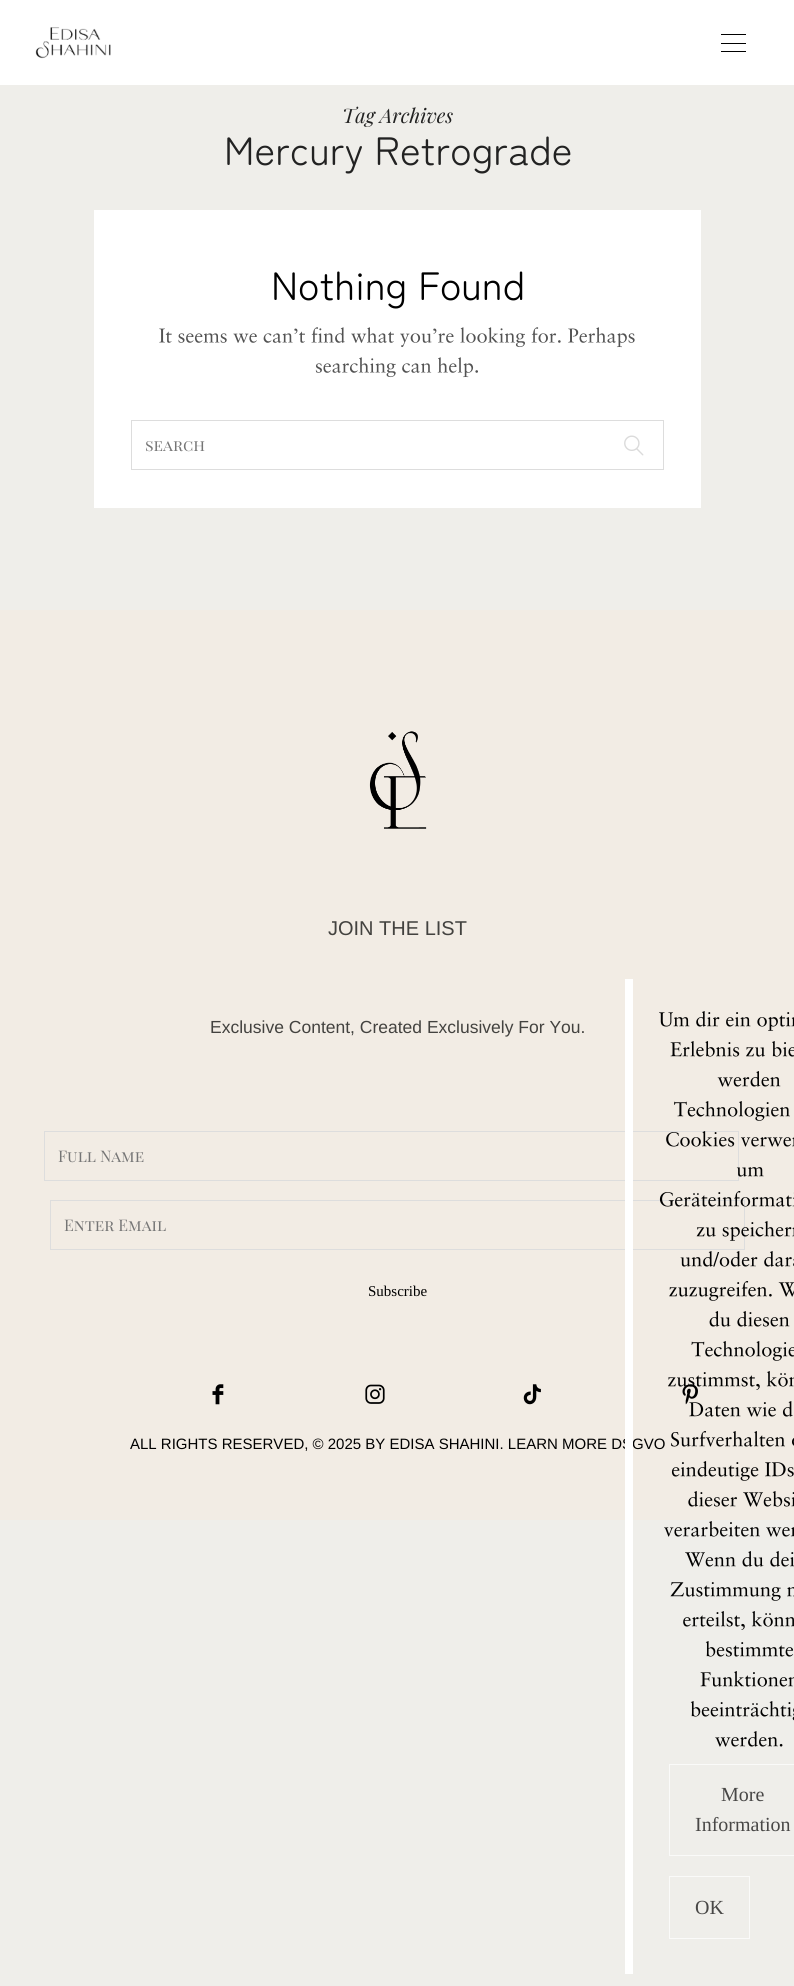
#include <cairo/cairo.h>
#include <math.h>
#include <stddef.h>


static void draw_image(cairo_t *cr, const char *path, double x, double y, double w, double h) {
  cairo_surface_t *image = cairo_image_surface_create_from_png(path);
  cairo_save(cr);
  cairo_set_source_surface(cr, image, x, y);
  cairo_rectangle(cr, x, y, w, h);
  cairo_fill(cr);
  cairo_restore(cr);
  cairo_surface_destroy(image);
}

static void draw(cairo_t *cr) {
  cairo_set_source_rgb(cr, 239 / 255.0, 238 / 255.0, 234 / 255.0);
  cairo_paint(cr);
  cairo_set_source_rgb(cr, 1, 1, 1);
  cairo_rectangle(cr, 0, 0, 794, 85);
  cairo_fill(cr);
  draw_image(cr, "images/1.png", 35, 27, 76, 32);
  cairo_set_source_rgb(cr, 0, 0, 0);
  cairo_rectangle(cr, 721, 43, 25, 1);
  cairo_fill(cr);
  cairo_rectangle(cr, 721, 34, 25, 1);
  cairo_fill(cr);
  cairo_rectangle(cr, 721, 51, 25, 1);
  cairo_fill(cr);
  cairo_set_source_rgb(cr, 1, 1, 1);
  cairo_rectangle(cr, 94, 210, 607, 298);
  cairo_fill(cr);
  draw_image(cr, "images/2.png", 159, 327, 476, 21);
  draw_image(cr, "images/3.png", 315, 357, 163, 21);
  cairo_rectangle(cr, 131.5, 420.5, 532, 49);
  cairo_set_source_rgb(cr, 221 / 255.0, 221 / 255.0, 221 / 255.0);
  cairo_set_line_width(cr, 1);
  cairo_stroke(cr);
  draw_image(cr, "images/4.png", 624, 435, 20, 21);
  cairo_set_source_rgb(cr, 242 / 255.0, 236 / 255.0, 228 / 255.0);
  cairo_rectangle(cr, 0, 610, 794, 910);
  cairo_fill(cr);
  draw_image(cr, "images/5.png", 369, 731, 58, 98);
  cairo_rectangle(cr, 44.5, 1131.5, 694, 49);
  cairo_set_source_rgb(cr, 221 / 255.0, 221 / 255.0, 221 / 255.0);
  cairo_stroke(cr);
  cairo_rectangle(cr, 50.5, 1200.5, 694, 49);
  cairo_stroke(cr);
  draw_image(cr, "images/6.png", 212, 1384, 12, 21);
  draw_image(cr, "images/7.png", 365, 1384, 20, 20);
  draw_image(cr, "images/8.png", 523, 1384, 18, 21);
  draw_image(cr, "images/9.png", 682, 1384, 16, 21);
  draw_image(cr, "images/10.png", 659, 1011, 135, 20);
  draw_image(cr, "images/11.png", 670, 1041, 124, 16);
  draw_image(cr, "images/12.png", 717, 1071, 64, 16);
  draw_image(cr, "images/13.png", 674, 1101, 116, 20);
  draw_image(cr, "images/14.png", 666, 1131, 128, 16);
  draw_image(cr, "images/15.png", 736, 1167, 28, 10);
  draw_image(cr, "images/16.png", 659, 1191, 135, 16);
  draw_image(cr, "images/17.png", 696, 1221, 98, 20);
  draw_image(cr, "images/18.png", 680, 1251, 114, 16);
  draw_image(cr, "images/19.png", 669, 1281, 125, 20);
  draw_image(cr, "images/20.png", 709, 1311, 81, 16);
  draw_image(cr, "images/21.png", 691, 1341, 103, 20);
  draw_image(cr, "images/22.png", 668, 1371, 126, 19);
  draw_image(cr, "images/23.png", 689, 1401, 104, 16);
  draw_image(cr, "images/24.png", 671, 1431, 123, 16);
  draw_image(cr, "images/25.png", 671, 1461, 123, 20);
  draw_image(cr, "images/26.png", 688, 1491, 106, 16);
  draw_image(cr, "images/27.png", 664, 1521, 130, 16);
  draw_image(cr, "images/28.png", 685, 1551, 109, 16);
  draw_image(cr, "images/29.png", 670, 1582, 124, 19);
  draw_image(cr, "images/30.png", 683, 1611, 111, 19);
  draw_image(cr, "images/31.png", 705, 1641, 89, 16);
  draw_image(cr, "images/32.png", 700, 1671, 94, 16);
  draw_image(cr, "images/33.png", 690, 1701, 104, 20);
  draw_image(cr, "images/34.png", 715, 1731, 68, 16);
  cairo_rectangle(cr, 669.5, 1764.5, 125, 91);
  cairo_set_source_rgb(cr, 250 / 255.0, 250 / 255.0, 249 / 255.0);
  cairo_stroke(cr);
  cairo_rectangle(cr, 669.5, 1876.5, 80, 62);
  cairo_stroke(cr);
  cairo_select_font_face(cr, "Playfair Display", CAIRO_FONT_SLANT_ITALIC, CAIRO_FONT_WEIGHT_NORMAL);
  cairo_set_font_size(cr, 20);
  cairo_set_source_rgb(cr, 34 / 255.0, 34 / 255.0, 34 / 255.0);
  cairo_move_to(cr, 342, 123);
  cairo_show_text(cr, "Tag Archives");
  cairo_select_font_face(cr, "Zen Maru Gothic", CAIRO_FONT_SLANT_NORMAL, CAIRO_FONT_WEIGHT_NORMAL);
  cairo_set_font_size(cr, 39.5);
  cairo_move_to(cr, 224, 165);
  cairo_show_text(cr, "Mercury Retrograde");
  cairo_set_source_rgb(cr, 0, 0, 0);
  cairo_move_to(cr, 271, 300);
  cairo_show_text(cr, "Nothing Found");
  cairo_select_font_face(cr, "Playfair Display SC", CAIRO_FONT_SLANT_NORMAL, CAIRO_FONT_WEIGHT_NORMAL);
  cairo_set_font_size(cr, 16);
  cairo_set_source_rgb(cr, 117 / 255.0, 117 / 255.0, 117 / 255.0);
  cairo_move_to(cr, 145, 451);
  cairo_show_text(cr, "search");
  cairo_select_font_face(cr, "Liberation Sans", CAIRO_FONT_SLANT_NORMAL, CAIRO_FONT_WEIGHT_NORMAL);
  cairo_set_font_size(cr, 20);
  cairo_set_source_rgb(cr, 67 / 255.0, 66 / 255.0, 63 / 255.0);
  cairo_move_to(cr, 328, 935);
  cairo_show_text(cr, "JOIN THE LIST");
  cairo_set_font_size(cr, 17.5);
  cairo_move_to(cr, 210, 1033);
  cairo_show_text(cr, "Exclusive Content, Created Exclusively For You.");
  cairo_select_font_face(cr, "Playfair Display SC", CAIRO_FONT_SLANT_NORMAL, CAIRO_FONT_WEIGHT_NORMAL);
  cairo_set_font_size(cr, 16);
  cairo_set_source_rgb(cr, 117 / 255.0, 117 / 255.0, 117 / 255.0);
  cairo_move_to(cr, 58, 1162);
  cairo_show_text(cr, "Full Name");
  cairo_move_to(cr, 64, 1231);
  cairo_show_text(cr, "Enter Email");
  cairo_select_font_face(cr, "Liberation Serif", CAIRO_FONT_SLANT_NORMAL, CAIRO_FONT_WEIGHT_NORMAL);
  cairo_set_font_size(cr, 15);
  cairo_set_source_rgb(cr, 0, 0, 0);
  cairo_move_to(cr, 368, 1296);
  cairo_show_text(cr, "Subscribe");
  cairo_select_font_face(cr, "Liberation Sans", CAIRO_FONT_SLANT_NORMAL, CAIRO_FONT_WEIGHT_NORMAL);
  cairo_move_to(cr, 130, 1449);
  cairo_show_text(cr, "ALL RIGHTS RESERVED, © 2025 BY EDISA SHAHINI. LEARN MORE DSGVO");
  cairo_set_source_rgb(cr, 1, 1, 1);
  cairo_rectangle(cr, 625, 979, 8, 995);
  cairo_fill(cr);
  cairo_select_font_face(cr, "Liberation Serif", CAIRO_FONT_SLANT_NORMAL, CAIRO_FONT_WEIGHT_NORMAL);
  cairo_set_font_size(cr, 20);
  cairo_set_source_rgb(cr, 72 / 255.0, 71 / 255.0, 70 / 255.0);
  cairo_move_to(cr, 721, 1801);
  cairo_show_text(cr, "More");
  cairo_move_to(cr, 695, 1831);
  cairo_show_text(cr, "Information");
  cairo_move_to(cr, 695, 1914);
  cairo_show_text(cr, "OK");
}

int main(void) {
  cairo_surface_t *surface = cairo_image_surface_create(CAIRO_FORMAT_RGB24, 794, 1986);
  cairo_t *cr = cairo_create(surface);
  cairo_font_options_t *options = cairo_font_options_create();
  cairo_font_options_set_hint_metrics(options, CAIRO_HINT_METRICS_OFF);
  cairo_font_options_set_hint_style(options, CAIRO_HINT_STYLE_NONE);
  cairo_set_font_options(cr, options);
  cairo_set_miter_limit(cr, 4);
  draw(cr);
  cairo_surface_write_to_png(surface, "out.png");
  cairo_font_options_destroy(options);
  cairo_destroy(cr);
  cairo_surface_destroy(surface);
  return 0;
}
